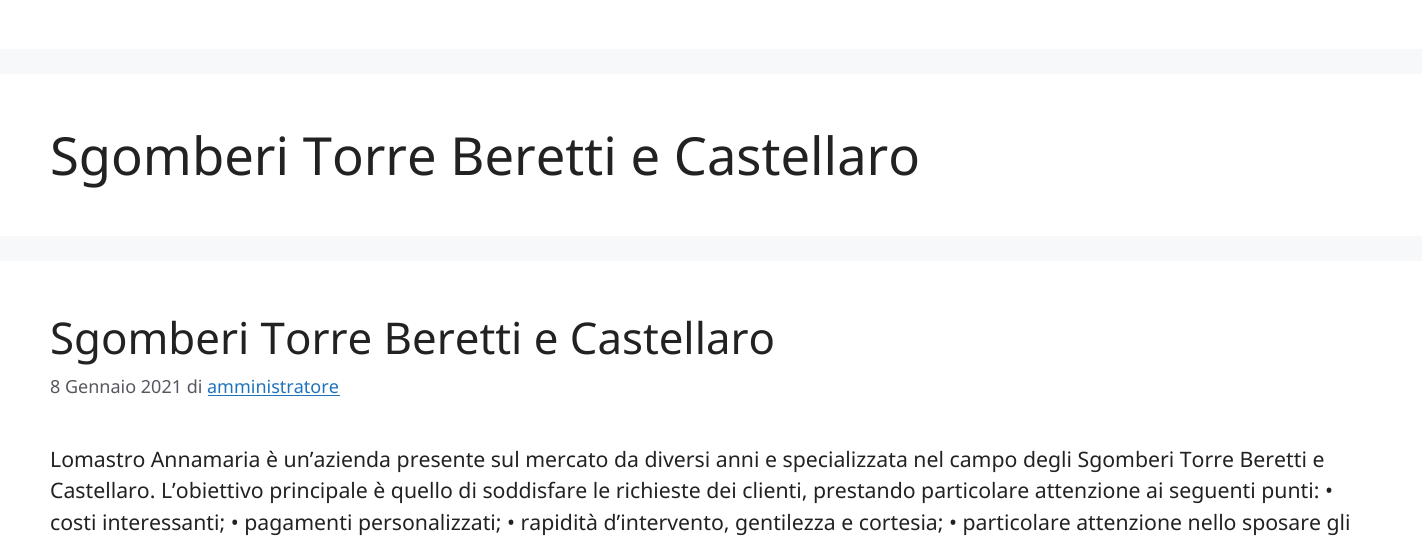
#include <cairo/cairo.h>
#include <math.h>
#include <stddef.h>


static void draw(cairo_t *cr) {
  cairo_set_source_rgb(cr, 247 / 255.0, 248 / 255.0, 249 / 255.0);
  cairo_paint(cr);
  cairo_set_source_rgb(cr, 1, 1, 1);
  cairo_rectangle(cr, 0, 0, 1422, 49);
  cairo_fill(cr);
  cairo_rectangle(cr, 0, 74, 1422, 162);
  cairo_fill(cr);
  cairo_rectangle(cr, 0, 261, 1422, 279);
  cairo_fill(cr);
  cairo_set_source_rgb(cr, 30 / 255.0, 115 / 255.0, 190 / 255.0);
  cairo_rectangle(cr, 208, 395, 132, 1);
  cairo_fill(cr);
  cairo_select_font_face(cr, "Noto Sans", CAIRO_FONT_SLANT_NORMAL, CAIRO_FONT_WEIGHT_NORMAL);
  cairo_set_font_size(cr, 52.5);
  cairo_set_source_rgb(cr, 34 / 255.0, 34 / 255.0, 34 / 255.0);
  cairo_move_to(cr, 50, 175);
  cairo_show_text(cr, "Sgomberi Torre Beretti e Castellaro");
  cairo_set_font_size(cr, 43.75);
  cairo_move_to(cr, 50, 354);
  cairo_show_text(cr, "Sgomberi Torre Beretti e Castellaro");
  cairo_set_font_size(cr, 18);
  cairo_set_source_rgb(cr, 87 / 255.0, 87 / 255.0, 96 / 255.0);
  cairo_move_to(cr, 50, 393);
  cairo_show_text(cr, "8 Gennaio 2021 di");
  cairo_set_source_rgb(cr, 30 / 255.0, 115 / 255.0, 190 / 255.0);
  cairo_move_to(cr, 207, 393);
  cairo_show_text(cr, "amministratore");
  cairo_set_font_size(cr, 21.25);
  cairo_set_source_rgb(cr, 34 / 255.0, 34 / 255.0, 34 / 255.0);
  cairo_move_to(cr, 50, 467);
  cairo_show_text(cr, "Lomastro Annamaria è un’azienda presente sul mercato da diversi anni e specializzata nel campo degli Sgomberi Torre Beretti e");
  cairo_move_to(cr, 50, 498);
  cairo_show_text(cr, "Castellaro. L’obiettivo principale è quello di soddisfare le richieste dei clienti, prestando particolare attenzione ai seguenti punti: •");
  cairo_move_to(cr, 50, 530);
  cairo_show_text(cr, "costi interessanti; • pagamenti personalizzati; • rapidità d’intervento, gentilezza e cortesia; • particolare attenzione nello sposare gli");
}

int main(void) {
  cairo_surface_t *surface = cairo_image_surface_create(CAIRO_FORMAT_RGB24, 1422, 540);
  cairo_t *cr = cairo_create(surface);
  cairo_font_options_t *options = cairo_font_options_create();
  cairo_font_options_set_hint_metrics(options, CAIRO_HINT_METRICS_OFF);
  cairo_font_options_set_hint_style(options, CAIRO_HINT_STYLE_NONE);
  cairo_set_font_options(cr, options);
  cairo_set_miter_limit(cr, 4);
  draw(cr);
  cairo_surface_write_to_png(surface, "out.png");
  cairo_font_options_destroy(options);
  cairo_destroy(cr);
  cairo_surface_destroy(surface);
  return 0;
}
